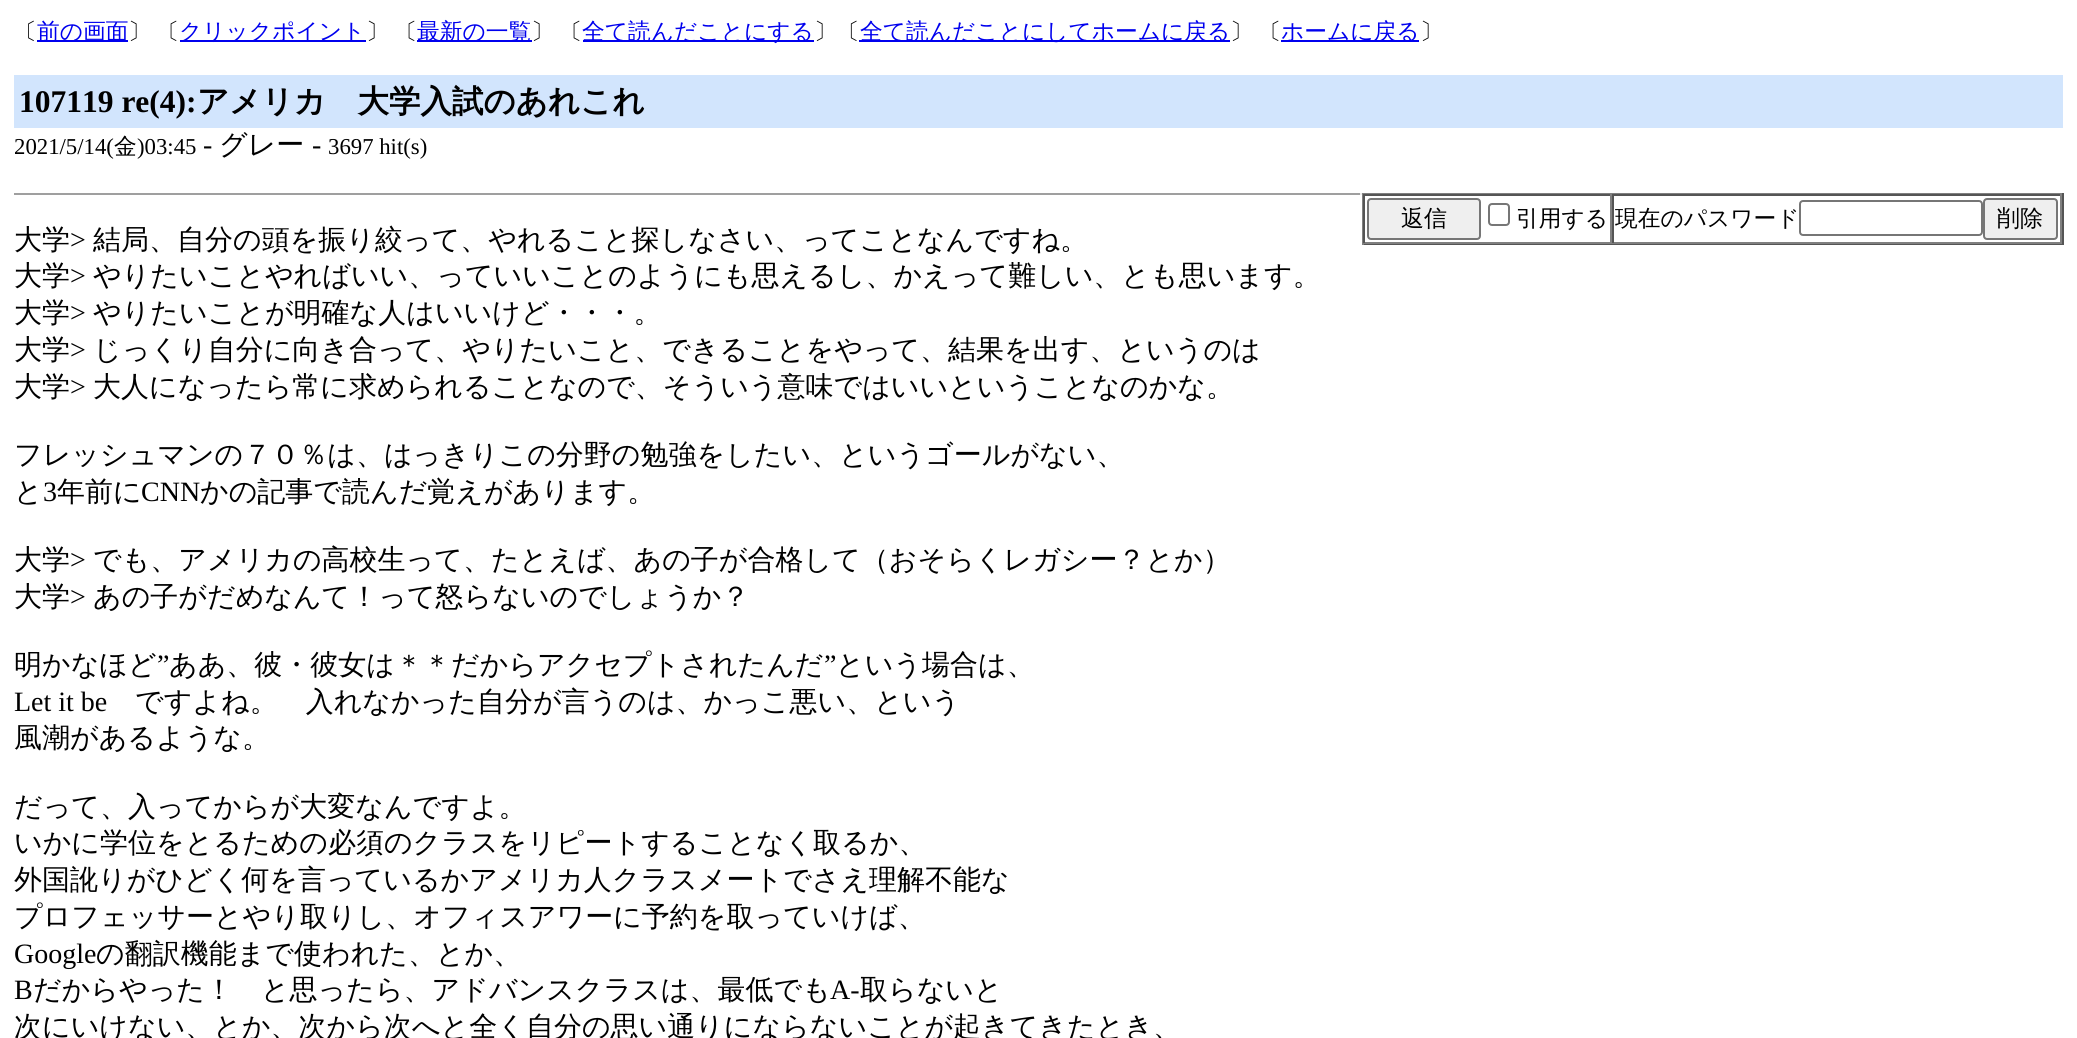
#include <cairo/cairo.h>
#include <math.h>
#include <stddef.h>


static void draw_spaced(cairo_t *cr, double x, double y, const char *s, double letter, double word) {
  cairo_move_to(cr, x, y);
  while (*s) {
    char ch[5] = {0};
    int n = 0;
    do ch[n++] = *s++; while ((*s & 0xC0) == 0x80);
    cairo_show_text(cr, ch);
    cairo_rel_move_to(cr, letter + word * (*ch == ' '), 0);
  }
}

static void rounded_rect(cairo_t *cr, double x, double y, double w, double h, double r) {
  cairo_new_sub_path(cr);
  cairo_arc(cr, x + w - r, y + h - r, r, 0, M_PI / 2);
  cairo_arc(cr, x + r, y + h - r, r, M_PI / 2, M_PI);
  cairo_arc(cr, x + r, y + r, r, M_PI, 1.5 * M_PI);
  cairo_arc(cr, x + w - r, y + r, r, 1.5 * M_PI, 2 * M_PI);
  cairo_close_path(cr);
}

static void draw(cairo_t *cr) {
  cairo_set_source_rgb(cr, 1, 1, 1);
  cairo_paint(cr);
  cairo_set_source_rgb(cr, 0, 0, 238 / 255.0);
  cairo_rectangle(cr, 37, 40, 91, 2);
  cairo_fill(cr);
  cairo_rectangle(cr, 180, 40, 186, 2);
  cairo_fill(cr);
  cairo_rectangle(cr, 417, 40, 115, 2);
  cairo_fill(cr);
  cairo_rectangle(cr, 583, 40, 231, 2);
  cairo_fill(cr);
  cairo_rectangle(cr, 859, 40, 371, 2);
  cairo_fill(cr);
  cairo_rectangle(cr, 1281, 40, 138, 2);
  cairo_fill(cr);
  cairo_set_source_rgb(cr, 210 / 255.0, 229 / 255.0, 253 / 255.0);
  cairo_rectangle(cr, 14, 75, 2049, 53);
  cairo_fill(cr);
  cairo_set_source_rgb(cr, 159 / 255.0, 159 / 255.0, 159 / 255.0);
  cairo_rectangle(cr, 14, 193, 1348, 2);
  cairo_fill(cr);
  cairo_set_source_rgb(cr, 238 / 255.0, 238 / 255.0, 238 / 255.0);
  cairo_rectangle(cr, 1360, 193, 2, 2);
  cairo_fill(cr);
  cairo_set_source_rgb(cr, 128 / 255.0, 128 / 255.0, 128 / 255.0);
  cairo_rectangle(cr, 1362, 193, 701, 1);
  cairo_fill(cr);
  cairo_set_source_rgb(cr, 85 / 255.0, 85 / 255.0, 85 / 255.0);
  cairo_rectangle(cr, 2062, 193, 2, 52);
  cairo_fill(cr);
  cairo_rectangle(cr, 1362, 243, 701, 2);
  cairo_fill(cr);
  cairo_set_source_rgb(cr, 128 / 255.0, 128 / 255.0, 128 / 255.0);
  cairo_rectangle(cr, 1362, 193, 2, 52);
  cairo_fill(cr);
  cairo_set_source_rgb(cr, 85 / 255.0, 85 / 255.0, 85 / 255.0);
  cairo_rectangle(cr, 1363, 194, 699, 2);
  cairo_fill(cr);
  cairo_set_source_rgb(cr, 128 / 255.0, 128 / 255.0, 128 / 255.0);
  cairo_rectangle(cr, 1610, 194, 2, 49);
  cairo_fill(cr);
  cairo_rectangle(cr, 1363, 242, 249, 2);
  cairo_fill(cr);
  cairo_set_source_rgb(cr, 85 / 255.0, 85 / 255.0, 85 / 255.0);
  cairo_rectangle(cr, 1363, 194, 2, 49);
  cairo_fill(cr);
  cairo_set_source_rgb(cr, 239 / 255.0, 239 / 255.0, 239 / 255.0);
  rounded_rect(cr, 1368, 199, 112, 40, 3);
  cairo_fill_preserve(cr);
  cairo_set_source_rgb(cr, 118 / 255.0, 118 / 255.0, 118 / 255.0);
  cairo_stroke(cr);
  rounded_rect(cr, 1489, 204, 20, 21, 3);
  cairo_stroke(cr);
  cairo_set_source_rgb(cr, 128 / 255.0, 128 / 255.0, 128 / 255.0);
  cairo_rectangle(cr, 2060, 194, 2, 49);
  cairo_fill(cr);
  cairo_rectangle(cr, 1612, 242, 450, 2);
  cairo_fill(cr);
  cairo_set_source_rgb(cr, 85 / 255.0, 85 / 255.0, 85 / 255.0);
  cairo_rectangle(cr, 1612, 194, 2, 49);
  cairo_fill(cr);
  rounded_rect(cr, 1800, 201, 182, 34, 3);
  cairo_set_source_rgb(cr, 118 / 255.0, 118 / 255.0, 118 / 255.0);
  cairo_stroke(cr);
  cairo_set_source_rgb(cr, 239 / 255.0, 239 / 255.0, 239 / 255.0);
  rounded_rect(cr, 1984, 199, 73, 40, 3);
  cairo_fill_preserve(cr);
  cairo_set_source_rgb(cr, 118 / 255.0, 118 / 255.0, 118 / 255.0);
  cairo_stroke(cr);
  cairo_select_font_face(cr, "WenQuanYi Zen Hei Medium", CAIRO_FONT_SLANT_NORMAL, CAIRO_FONT_WEIGHT_NORMAL);
  cairo_set_font_size(cr, 22.75);
  cairo_set_source_rgb(cr, 0, 0, 0);
  cairo_move_to(cr, 14, 39);
  cairo_show_text(cr, "〔");
  cairo_set_source_rgb(cr, 0, 0, 238 / 255.0);
  cairo_move_to(cr, 37, 39);
  cairo_show_text(cr, "前の画面");
  cairo_set_source_rgb(cr, 0, 0, 0);
  draw_spaced(cr, 128, 39, "〕 〔", 0, -1);
  cairo_set_source_rgb(cr, 0, 0, 238 / 255.0);
  cairo_move_to(cr, 179, 39);
  cairo_show_text(cr, "クリックポイント");
  cairo_set_source_rgb(cr, 0, 0, 0);
  draw_spaced(cr, 366, 39, "〕 〔", 0, -1);
  cairo_set_source_rgb(cr, 0, 0, 238 / 255.0);
  cairo_move_to(cr, 417, 39);
  cairo_show_text(cr, "最新の一覧");
  cairo_set_source_rgb(cr, 0, 0, 0);
  draw_spaced(cr, 531, 39, "〕 〔", 0, -1);
  cairo_set_source_rgb(cr, 0, 0, 238 / 255.0);
  cairo_move_to(cr, 582, 39);
  cairo_show_text(cr, "全て読んだことにする");
  cairo_set_source_rgb(cr, 0, 0, 0);
  cairo_move_to(cr, 814, 39);
  cairo_show_text(cr, "〕〔");
  cairo_set_source_rgb(cr, 0, 0, 238 / 255.0);
  cairo_move_to(cr, 860, 39);
  cairo_show_text(cr, "全て読んだことにしてホームに戻る");
  cairo_set_source_rgb(cr, 0, 0, 0);
  draw_spaced(cr, 1230, 39, "〕 〔", 0, -1);
  cairo_set_source_rgb(cr, 0, 0, 238 / 255.0);
  cairo_move_to(cr, 1281, 39);
  cairo_show_text(cr, "ホームに戻る");
  cairo_set_source_rgb(cr, 0, 0, 0);
  cairo_move_to(cr, 1420, 39);
  cairo_show_text(cr, "〕");
  cairo_select_font_face(cr, "Liberation Serif", CAIRO_FONT_SLANT_NORMAL, CAIRO_FONT_WEIGHT_BOLD);
  cairo_set_font_size(cr, 31.5);
  cairo_move_to(cr, 19, 112);
  cairo_show_text(cr, "107119 re(4):");
  cairo_select_font_face(cr, "WenQuanYi Zen Hei", CAIRO_FONT_SLANT_NORMAL, CAIRO_FONT_WEIGHT_BOLD);
  cairo_move_to(cr, 197, 112);
  cairo_show_text(cr, "アメリカ　大学入試のあれこれ");
  cairo_select_font_face(cr, "Liberation Serif", CAIRO_FONT_SLANT_NORMAL, CAIRO_FONT_WEIGHT_NORMAL);
  cairo_set_font_size(cr, 22.75);
  cairo_move_to(cr, 14, 154);
  cairo_show_text(cr, "2021/5/14(");
  cairo_select_font_face(cr, "WenQuanYi Zen Hei Medium", CAIRO_FONT_SLANT_NORMAL, CAIRO_FONT_WEIGHT_NORMAL);
  cairo_move_to(cr, 114, 154);
  cairo_show_text(cr, "金");
  cairo_select_font_face(cr, "Liberation Serif", CAIRO_FONT_SLANT_NORMAL, CAIRO_FONT_WEIGHT_NORMAL);
  cairo_move_to(cr, 137, 154);
  cairo_show_text(cr, ")03:45");
  cairo_set_font_size(cr, 28);
  cairo_move_to(cr, 203, 154);
  cairo_show_text(cr, "-");
  cairo_select_font_face(cr, "WenQuanYi Zen Hei Medium", CAIRO_FONT_SLANT_NORMAL, CAIRO_FONT_WEIGHT_NORMAL);
  cairo_move_to(cr, 219, 154);
  cairo_show_text(cr, "グレー");
  cairo_select_font_face(cr, "Liberation Serif", CAIRO_FONT_SLANT_NORMAL, CAIRO_FONT_WEIGHT_NORMAL);
  cairo_move_to(cr, 312, 154);
  cairo_show_text(cr, "-");
  cairo_set_font_size(cr, 22.75);
  cairo_move_to(cr, 328, 154);
  cairo_show_text(cr, "3697 hit(s)");
  cairo_select_font_face(cr, "WenQuanYi Zen Hei Medium", CAIRO_FONT_SLANT_NORMAL, CAIRO_FONT_WEIGHT_NORMAL);
  cairo_set_font_size(cr, 23);
  cairo_move_to(cr, 1401, 226);
  cairo_show_text(cr, "返信");
  cairo_set_font_size(cr, 22.75);
  cairo_move_to(cr, 1516, 226);
  cairo_show_text(cr, "引用する 現在のパスワード");
  cairo_set_font_size(cr, 23);
  cairo_move_to(cr, 1997, 226);
  cairo_show_text(cr, "削除");
  cairo_set_font_size(cr, 28);
  cairo_move_to(cr, 14, 249);
  cairo_show_text(cr, "大学");
  cairo_select_font_face(cr, "Liberation Serif", CAIRO_FONT_SLANT_NORMAL, CAIRO_FONT_WEIGHT_NORMAL);
  cairo_move_to(cr, 70, 249);
  cairo_show_text(cr, ">");
  cairo_select_font_face(cr, "WenQuanYi Zen Hei Medium", CAIRO_FONT_SLANT_NORMAL, CAIRO_FONT_WEIGHT_NORMAL);
  cairo_move_to(cr, 93, 249);
  cairo_show_text(cr, "結局、自分の頭を振り絞って、やれること探しなさい、ってことなんですね。");
  cairo_move_to(cr, 14, 285);
  cairo_show_text(cr, "大学");
  cairo_select_font_face(cr, "Liberation Serif", CAIRO_FONT_SLANT_NORMAL, CAIRO_FONT_WEIGHT_NORMAL);
  cairo_move_to(cr, 70, 285);
  cairo_show_text(cr, ">");
  cairo_select_font_face(cr, "WenQuanYi Zen Hei Medium", CAIRO_FONT_SLANT_NORMAL, CAIRO_FONT_WEIGHT_NORMAL);
  cairo_move_to(cr, 93, 285);
  cairo_show_text(cr, "やりたいことやればいい、っていいことのようにも思えるし、かえって難しい、とも思います。");
  cairo_move_to(cr, 14, 322);
  cairo_show_text(cr, "大学");
  cairo_select_font_face(cr, "Liberation Serif", CAIRO_FONT_SLANT_NORMAL, CAIRO_FONT_WEIGHT_NORMAL);
  cairo_move_to(cr, 70, 322);
  cairo_show_text(cr, ">");
  cairo_select_font_face(cr, "WenQuanYi Zen Hei Medium", CAIRO_FONT_SLANT_NORMAL, CAIRO_FONT_WEIGHT_NORMAL);
  cairo_move_to(cr, 93, 322);
  cairo_show_text(cr, "やりたいことが明確な人はいいけど・・・。");
  cairo_move_to(cr, 14, 359);
  cairo_show_text(cr, "大学");
  cairo_select_font_face(cr, "Liberation Serif", CAIRO_FONT_SLANT_NORMAL, CAIRO_FONT_WEIGHT_NORMAL);
  cairo_move_to(cr, 70, 359);
  cairo_show_text(cr, ">");
  cairo_select_font_face(cr, "WenQuanYi Zen Hei Medium", CAIRO_FONT_SLANT_NORMAL, CAIRO_FONT_WEIGHT_NORMAL);
  cairo_move_to(cr, 93, 359);
  cairo_show_text(cr, "じっくり自分に向き合って、やりたいこと、できることをやって、結果を出す、というのは");
  cairo_move_to(cr, 14, 396);
  cairo_show_text(cr, "大学");
  cairo_select_font_face(cr, "Liberation Serif", CAIRO_FONT_SLANT_NORMAL, CAIRO_FONT_WEIGHT_NORMAL);
  cairo_move_to(cr, 70, 396);
  cairo_show_text(cr, ">");
  cairo_select_font_face(cr, "WenQuanYi Zen Hei Medium", CAIRO_FONT_SLANT_NORMAL, CAIRO_FONT_WEIGHT_NORMAL);
  cairo_move_to(cr, 93, 396);
  cairo_show_text(cr, "大人になったら常に求められることなので、そういう意味ではいいということなのかな。");
  cairo_move_to(cr, 14, 464);
  cairo_show_text(cr, "フレッシュマンの７０％は、はっきりこの分野の勉強をしたい、というゴールがない、");
  cairo_move_to(cr, 14, 501);
  cairo_show_text(cr, "と");
  cairo_select_font_face(cr, "Liberation Serif", CAIRO_FONT_SLANT_NORMAL, CAIRO_FONT_WEIGHT_NORMAL);
  cairo_move_to(cr, 43, 501);
  cairo_show_text(cr, "3");
  cairo_select_font_face(cr, "WenQuanYi Zen Hei Medium", CAIRO_FONT_SLANT_NORMAL, CAIRO_FONT_WEIGHT_NORMAL);
  cairo_move_to(cr, 57, 501);
  cairo_show_text(cr, "年前に");
  cairo_select_font_face(cr, "Liberation Serif", CAIRO_FONT_SLANT_NORMAL, CAIRO_FONT_WEIGHT_NORMAL);
  cairo_move_to(cr, 141, 501);
  cairo_show_text(cr, "CNN");
  cairo_select_font_face(cr, "WenQuanYi Zen Hei Medium", CAIRO_FONT_SLANT_NORMAL, CAIRO_FONT_WEIGHT_NORMAL);
  cairo_move_to(cr, 200, 501);
  cairo_show_text(cr, "かの記事で読んだ覚えがあります。");
  cairo_move_to(cr, 14, 569);
  cairo_show_text(cr, "大学");
  cairo_select_font_face(cr, "Liberation Serif", CAIRO_FONT_SLANT_NORMAL, CAIRO_FONT_WEIGHT_NORMAL);
  cairo_move_to(cr, 70, 569);
  cairo_show_text(cr, ">");
  cairo_select_font_face(cr, "WenQuanYi Zen Hei Medium", CAIRO_FONT_SLANT_NORMAL, CAIRO_FONT_WEIGHT_NORMAL);
  cairo_move_to(cr, 93, 569);
  cairo_show_text(cr, "でも、アメリカの高校生って、たとえば、あの子が合格して（おそらくレガシー？とか）");
  cairo_move_to(cr, 14, 606);
  cairo_show_text(cr, "大学");
  cairo_select_font_face(cr, "Liberation Serif", CAIRO_FONT_SLANT_NORMAL, CAIRO_FONT_WEIGHT_NORMAL);
  cairo_move_to(cr, 70, 606);
  cairo_show_text(cr, ">");
  cairo_select_font_face(cr, "WenQuanYi Zen Hei Medium", CAIRO_FONT_SLANT_NORMAL, CAIRO_FONT_WEIGHT_NORMAL);
  cairo_move_to(cr, 93, 606);
  cairo_show_text(cr, "あの子がだめなんて！って怒らないのでしょうか？");
  cairo_move_to(cr, 14, 674);
  cairo_show_text(cr, "明かなほど");
  cairo_select_font_face(cr, "Liberation Serif", CAIRO_FONT_SLANT_NORMAL, CAIRO_FONT_WEIGHT_NORMAL);
  cairo_move_to(cr, 157, 674);
  cairo_show_text(cr, "”");
  cairo_select_font_face(cr, "WenQuanYi Zen Hei Medium", CAIRO_FONT_SLANT_NORMAL, CAIRO_FONT_WEIGHT_NORMAL);
  cairo_move_to(cr, 169, 674);
  cairo_show_text(cr, "ああ、彼・彼女は＊＊だからアクセプトされたんだ");
  cairo_select_font_face(cr, "Liberation Serif", CAIRO_FONT_SLANT_NORMAL, CAIRO_FONT_WEIGHT_NORMAL);
  cairo_move_to(cr, 824, 674);
  cairo_show_text(cr, "”");
  cairo_select_font_face(cr, "WenQuanYi Zen Hei Medium", CAIRO_FONT_SLANT_NORMAL, CAIRO_FONT_WEIGHT_NORMAL);
  cairo_move_to(cr, 836, 674);
  cairo_show_text(cr, "という場合は、");
  cairo_select_font_face(cr, "Liberation Serif", CAIRO_FONT_SLANT_NORMAL, CAIRO_FONT_WEIGHT_NORMAL);
  cairo_move_to(cr, 14, 711);
  cairo_show_text(cr, "Let it be");
  cairo_select_font_face(cr, "WenQuanYi Zen Hei Medium", CAIRO_FONT_SLANT_NORMAL, CAIRO_FONT_WEIGHT_NORMAL);
  cairo_move_to(cr, 135, 711);
  cairo_show_text(cr, "ですよね。　入れなかった自分が言うのは、かっこ悪い、という");
  cairo_move_to(cr, 14, 747);
  cairo_show_text(cr, "風潮があるような。");
  cairo_move_to(cr, 14, 816);
  cairo_show_text(cr, "だって、入ってからが大変なんですよ。");
  cairo_move_to(cr, 14, 852);
  cairo_show_text(cr, "いかに学位をとるための必須のクラスをリピートすることなく取るか、");
  cairo_move_to(cr, 14, 889);
  cairo_show_text(cr, "外国訛りがひどく何を言っているかアメリカ人クラスメートでさえ理解不能な");
  cairo_move_to(cr, 14, 926);
  cairo_show_text(cr, "プロフェッサーとやり取りし、オフィスアワーに予約を取っていけば、");
  cairo_select_font_face(cr, "Liberation Serif", CAIRO_FONT_SLANT_NORMAL, CAIRO_FONT_WEIGHT_NORMAL);
  cairo_move_to(cr, 14, 963);
  cairo_show_text(cr, "Google");
  cairo_select_font_face(cr, "WenQuanYi Zen Hei Medium", CAIRO_FONT_SLANT_NORMAL, CAIRO_FONT_WEIGHT_NORMAL);
  cairo_move_to(cr, 96, 963);
  cairo_show_text(cr, "の翻訳機能まで使われた、とか、");
  cairo_select_font_face(cr, "Liberation Serif", CAIRO_FONT_SLANT_NORMAL, CAIRO_FONT_WEIGHT_NORMAL);
  cairo_move_to(cr, 14, 999);
  cairo_show_text(cr, "B");
  cairo_select_font_face(cr, "WenQuanYi Zen Hei Medium", CAIRO_FONT_SLANT_NORMAL, CAIRO_FONT_WEIGHT_NORMAL);
  cairo_move_to(cr, 33, 999);
  cairo_show_text(cr, "だからやった！　と思ったら、アドバンスクラスは、最低でも");
  cairo_select_font_face(cr, "Liberation Serif", CAIRO_FONT_SLANT_NORMAL, CAIRO_FONT_WEIGHT_NORMAL);
  cairo_move_to(cr, 830, 999);
  cairo_show_text(cr, "A-");
  cairo_select_font_face(cr, "WenQuanYi Zen Hei Medium", CAIRO_FONT_SLANT_NORMAL, CAIRO_FONT_WEIGHT_NORMAL);
  cairo_move_to(cr, 860, 999);
  cairo_show_text(cr, "取らないと");
  cairo_move_to(cr, 14, 1036);
  cairo_show_text(cr, "次にいけない、とか、次から次へと全く自分の思い通りにならないことが起きてきたとき、");
}

int main(void) {
  cairo_surface_t *surface = cairo_image_surface_create(CAIRO_FORMAT_RGB24, 2077, 1038);
  cairo_t *cr = cairo_create(surface);
  cairo_font_options_t *options = cairo_font_options_create();
  cairo_font_options_set_hint_metrics(options, CAIRO_HINT_METRICS_OFF);
  cairo_font_options_set_hint_style(options, CAIRO_HINT_STYLE_NONE);
  cairo_set_font_options(cr, options);
  cairo_set_miter_limit(cr, 4);
  draw(cr);
  cairo_surface_write_to_png(surface, "out.png");
  cairo_font_options_destroy(options);
  cairo_destroy(cr);
  cairo_surface_destroy(surface);
  return 0;
}
